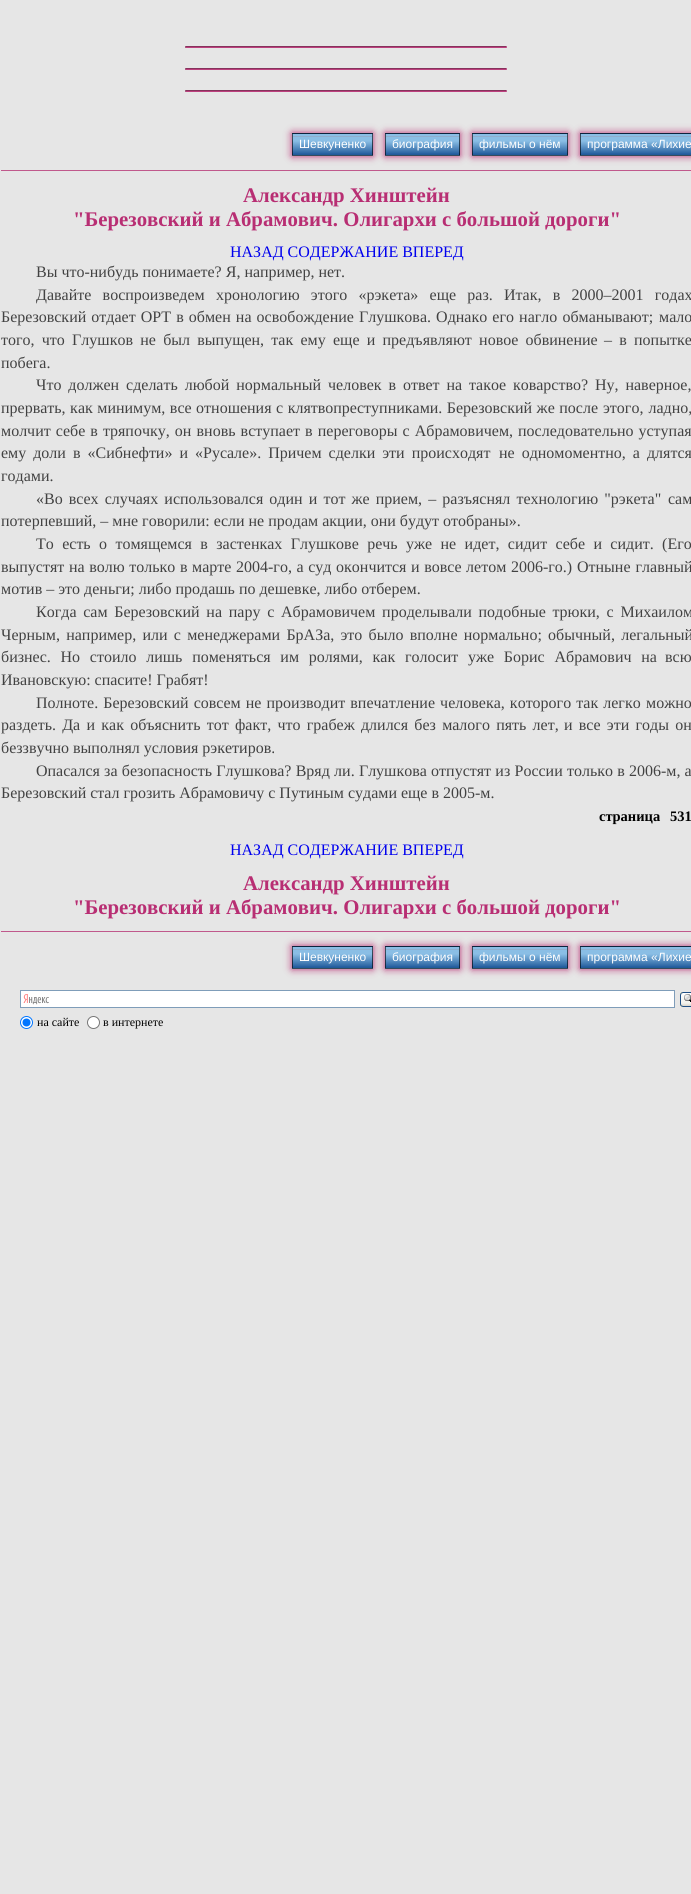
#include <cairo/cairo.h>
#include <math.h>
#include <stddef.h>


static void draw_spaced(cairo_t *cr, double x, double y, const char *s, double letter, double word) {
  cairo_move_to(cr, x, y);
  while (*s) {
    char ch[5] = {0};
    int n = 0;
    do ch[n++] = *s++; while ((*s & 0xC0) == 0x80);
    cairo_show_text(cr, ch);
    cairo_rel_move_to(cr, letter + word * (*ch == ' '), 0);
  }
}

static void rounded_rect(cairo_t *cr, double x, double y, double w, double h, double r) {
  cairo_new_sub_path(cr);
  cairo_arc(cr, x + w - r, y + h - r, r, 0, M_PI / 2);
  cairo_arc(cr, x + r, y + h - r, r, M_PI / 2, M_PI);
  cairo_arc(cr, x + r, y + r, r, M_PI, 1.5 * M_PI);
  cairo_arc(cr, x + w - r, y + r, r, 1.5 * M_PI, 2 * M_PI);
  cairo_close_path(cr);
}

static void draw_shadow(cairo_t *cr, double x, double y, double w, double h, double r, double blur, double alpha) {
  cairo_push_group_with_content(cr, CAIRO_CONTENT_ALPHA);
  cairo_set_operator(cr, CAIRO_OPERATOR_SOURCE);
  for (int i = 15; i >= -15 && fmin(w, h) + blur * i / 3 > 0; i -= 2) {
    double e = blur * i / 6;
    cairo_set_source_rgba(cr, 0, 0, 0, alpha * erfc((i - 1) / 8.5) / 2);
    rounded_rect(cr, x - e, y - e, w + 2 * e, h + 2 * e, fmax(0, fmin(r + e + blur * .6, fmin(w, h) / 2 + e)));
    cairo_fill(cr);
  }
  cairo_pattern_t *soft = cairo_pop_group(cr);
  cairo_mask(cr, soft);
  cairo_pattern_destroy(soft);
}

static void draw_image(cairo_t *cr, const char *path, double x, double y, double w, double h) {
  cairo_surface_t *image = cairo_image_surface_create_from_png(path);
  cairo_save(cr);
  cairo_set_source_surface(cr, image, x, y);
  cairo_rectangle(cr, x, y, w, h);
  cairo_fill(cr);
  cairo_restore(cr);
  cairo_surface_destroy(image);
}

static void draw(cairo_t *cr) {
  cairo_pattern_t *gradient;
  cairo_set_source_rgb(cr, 230 / 255.0, 230 / 255.0, 230 / 255.0);
  cairo_paint(cr);
  cairo_set_source_rgb(cr, 134 / 255.0, 51 / 255.0, 92 / 255.0);
  cairo_new_path(cr);
  cairo_move_to(cr, 185, 46);
  cairo_line_to(cr, 507, 46);
  cairo_line_to(cr, 506, 47);
  cairo_line_to(cr, 186, 47);
  cairo_close_path(cr);
  cairo_fill(cr);
  cairo_set_source_rgba(cr, 184 / 255.0, 46 / 255.0, 115 / 255.0, 0.9);
  cairo_new_path(cr);
  cairo_move_to(cr, 507, 46);
  cairo_line_to(cr, 507, 48);
  cairo_line_to(cr, 506, 47);
  cairo_close_path(cr);
  cairo_fill(cr);
  cairo_new_path(cr);
  cairo_move_to(cr, 507, 48);
  cairo_line_to(cr, 185, 48);
  cairo_line_to(cr, 186, 47);
  cairo_line_to(cr, 506, 47);
  cairo_close_path(cr);
  cairo_fill(cr);
  cairo_set_source_rgba(cr, 123 / 255.0, 31 / 255.0, 77 / 255.0, 0.9);
  cairo_new_path(cr);
  cairo_move_to(cr, 185, 48);
  cairo_line_to(cr, 185, 46);
  cairo_line_to(cr, 186, 47);
  cairo_close_path(cr);
  cairo_fill(cr);
  cairo_set_source_rgb(cr, 134 / 255.0, 51 / 255.0, 92 / 255.0);
  cairo_new_path(cr);
  cairo_move_to(cr, 185, 68);
  cairo_line_to(cr, 507, 68);
  cairo_line_to(cr, 506, 69);
  cairo_line_to(cr, 186, 69);
  cairo_close_path(cr);
  cairo_fill(cr);
  cairo_set_source_rgba(cr, 184 / 255.0, 46 / 255.0, 115 / 255.0, 0.9);
  cairo_new_path(cr);
  cairo_move_to(cr, 507, 68);
  cairo_line_to(cr, 507, 70);
  cairo_line_to(cr, 506, 69);
  cairo_close_path(cr);
  cairo_fill(cr);
  cairo_new_path(cr);
  cairo_move_to(cr, 507, 70);
  cairo_line_to(cr, 185, 70);
  cairo_line_to(cr, 186, 69);
  cairo_line_to(cr, 506, 69);
  cairo_close_path(cr);
  cairo_fill(cr);
  cairo_set_source_rgba(cr, 123 / 255.0, 31 / 255.0, 77 / 255.0, 0.9);
  cairo_new_path(cr);
  cairo_move_to(cr, 185, 70);
  cairo_line_to(cr, 185, 68);
  cairo_line_to(cr, 186, 69);
  cairo_close_path(cr);
  cairo_fill(cr);
  cairo_set_source_rgb(cr, 134 / 255.0, 51 / 255.0, 92 / 255.0);
  cairo_new_path(cr);
  cairo_move_to(cr, 185, 90);
  cairo_line_to(cr, 507, 90);
  cairo_line_to(cr, 506, 91);
  cairo_line_to(cr, 186, 91);
  cairo_close_path(cr);
  cairo_fill(cr);
  cairo_set_source_rgba(cr, 184 / 255.0, 46 / 255.0, 115 / 255.0, 0.9);
  cairo_new_path(cr);
  cairo_move_to(cr, 507, 90);
  cairo_line_to(cr, 507, 92);
  cairo_line_to(cr, 506, 91);
  cairo_close_path(cr);
  cairo_fill(cr);
  cairo_new_path(cr);
  cairo_move_to(cr, 507, 92);
  cairo_line_to(cr, 185, 92);
  cairo_line_to(cr, 186, 91);
  cairo_line_to(cr, 506, 91);
  cairo_close_path(cr);
  cairo_fill(cr);
  cairo_set_source_rgba(cr, 123 / 255.0, 31 / 255.0, 77 / 255.0, 0.9);
  cairo_new_path(cr);
  cairo_move_to(cr, 185, 92);
  cairo_line_to(cr, 185, 90);
  cairo_line_to(cr, 186, 91);
  cairo_close_path(cr);
  cairo_fill(cr);
  cairo_set_source_rgb(cr, 192 / 255.0, 89 / 255.0, 140 / 255.0);
  cairo_rectangle(cr, 1, 170, 690, 1);
  cairo_fill(cr);
  cairo_set_source_rgb(cr, 184 / 255.0, 46 / 255.0, 115 / 255.0);
  draw_shadow(cr, 292, 133, 81, 23, 0, 4, 1);
  gradient = cairo_pattern_create_linear(333, 113, 333, 134);
  cairo_pattern_add_color_stop_rgba(gradient, 0.22, 138 / 255.0, 190 / 255.0, 229 / 255.0, 1);
  cairo_pattern_add_color_stop_rgba(gradient, 1, 30 / 255.0, 88 / 255.0, 153 / 255.0, 1);
  cairo_set_source(cr, gradient);
  cairo_pattern_destroy(gradient);
  cairo_rectangle(cr, 292, 133, 81, 1);
  cairo_fill(cr);
  gradient = cairo_pattern_create_linear(333, 134, 333, 155);
  cairo_pattern_add_color_stop_rgba(gradient, 0.22, 138 / 255.0, 190 / 255.0, 229 / 255.0, 1);
  cairo_pattern_add_color_stop_rgba(gradient, 1, 30 / 255.0, 88 / 255.0, 153 / 255.0, 1);
  cairo_set_source(cr, gradient);
  cairo_pattern_destroy(gradient);
  cairo_rectangle(cr, 292, 134, 81, 21);
  cairo_fill(cr);
  gradient = cairo_pattern_create_linear(333, 155, 333, 176);
  cairo_pattern_add_color_stop_rgba(gradient, 0.22, 138 / 255.0, 190 / 255.0, 229 / 255.0, 1);
  cairo_pattern_add_color_stop_rgba(gradient, 1, 30 / 255.0, 88 / 255.0, 153 / 255.0, 1);
  cairo_set_source(cr, gradient);
  cairo_pattern_destroy(gradient);
  cairo_rectangle(cr, 292, 155, 81, 1);
  cairo_fill(cr);
  cairo_rectangle(cr, 292.5, 133.5, 80, 22);
  cairo_set_source_rgba(cr, 0, 0, 0, 0.6);
  cairo_set_line_width(cr, 1);
  cairo_stroke(cr);
  gradient = cairo_pattern_create_linear(333, 137, 333, 155);
  cairo_pattern_add_color_stop_rgba(gradient, 0.22, 138 / 255.0, 190 / 255.0, 229 / 255.0, 1);
  cairo_pattern_add_color_stop_rgba(gradient, 1, 30 / 255.0, 88 / 255.0, 153 / 255.0, 1);
  cairo_set_source(cr, gradient);
  cairo_pattern_destroy(gradient);
  cairo_rectangle(cr, 293, 139, 79, 14);
  cairo_fill(cr);
  cairo_set_source_rgb(cr, 145 / 255.0, 174 / 255.0, 206 / 255.0);
  cairo_rectangle(cr, 293, 136, 79, 1);
  cairo_fill(cr);
  cairo_set_source_rgb(cr, 184 / 255.0, 46 / 255.0, 115 / 255.0);
  draw_shadow(cr, 385, 133, 75, 23, 0, 4, 1);
  gradient = cairo_pattern_create_linear(423, 113, 423, 134);
  cairo_pattern_add_color_stop_rgba(gradient, 0.22, 138 / 255.0, 190 / 255.0, 229 / 255.0, 1);
  cairo_pattern_add_color_stop_rgba(gradient, 1, 30 / 255.0, 88 / 255.0, 153 / 255.0, 1);
  cairo_set_source(cr, gradient);
  cairo_pattern_destroy(gradient);
  cairo_rectangle(cr, 385, 133, 75, 1);
  cairo_fill(cr);
  gradient = cairo_pattern_create_linear(423, 134, 423, 155);
  cairo_pattern_add_color_stop_rgba(gradient, 0.22, 138 / 255.0, 190 / 255.0, 229 / 255.0, 1);
  cairo_pattern_add_color_stop_rgba(gradient, 1, 30 / 255.0, 88 / 255.0, 153 / 255.0, 1);
  cairo_set_source(cr, gradient);
  cairo_pattern_destroy(gradient);
  cairo_rectangle(cr, 385, 134, 75, 21);
  cairo_fill(cr);
  gradient = cairo_pattern_create_linear(423, 155, 423, 176);
  cairo_pattern_add_color_stop_rgba(gradient, 0.22, 138 / 255.0, 190 / 255.0, 229 / 255.0, 1);
  cairo_pattern_add_color_stop_rgba(gradient, 1, 30 / 255.0, 88 / 255.0, 153 / 255.0, 1);
  cairo_set_source(cr, gradient);
  cairo_pattern_destroy(gradient);
  cairo_rectangle(cr, 385, 155, 75, 1);
  cairo_fill(cr);
  cairo_rectangle(cr, 385.5, 133.5, 74, 22);
  cairo_set_source_rgba(cr, 0, 0, 0, 0.6);
  cairo_stroke(cr);
  gradient = cairo_pattern_create_linear(423, 137, 423, 155);
  cairo_pattern_add_color_stop_rgba(gradient, 0.22, 138 / 255.0, 190 / 255.0, 229 / 255.0, 1);
  cairo_pattern_add_color_stop_rgba(gradient, 1, 30 / 255.0, 88 / 255.0, 153 / 255.0, 1);
  cairo_set_source(cr, gradient);
  cairo_pattern_destroy(gradient);
  cairo_rectangle(cr, 386, 139, 73, 14);
  cairo_fill(cr);
  cairo_set_source_rgb(cr, 145 / 255.0, 174 / 255.0, 206 / 255.0);
  cairo_rectangle(cr, 386, 136, 73, 1);
  cairo_fill(cr);
  cairo_set_source_rgb(cr, 184 / 255.0, 46 / 255.0, 115 / 255.0);
  draw_shadow(cr, 472, 133, 96, 23, 0, 4, 1);
  gradient = cairo_pattern_create_linear(520, 113, 520, 134);
  cairo_pattern_add_color_stop_rgba(gradient, 0.22, 138 / 255.0, 190 / 255.0, 229 / 255.0, 1);
  cairo_pattern_add_color_stop_rgba(gradient, 1, 30 / 255.0, 88 / 255.0, 153 / 255.0, 1);
  cairo_set_source(cr, gradient);
  cairo_pattern_destroy(gradient);
  cairo_rectangle(cr, 472, 133, 96, 1);
  cairo_fill(cr);
  gradient = cairo_pattern_create_linear(520, 134, 520, 155);
  cairo_pattern_add_color_stop_rgba(gradient, 0.22, 138 / 255.0, 190 / 255.0, 229 / 255.0, 1);
  cairo_pattern_add_color_stop_rgba(gradient, 1, 30 / 255.0, 88 / 255.0, 153 / 255.0, 1);
  cairo_set_source(cr, gradient);
  cairo_pattern_destroy(gradient);
  cairo_rectangle(cr, 472, 134, 96, 21);
  cairo_fill(cr);
  gradient = cairo_pattern_create_linear(520, 155, 520, 176);
  cairo_pattern_add_color_stop_rgba(gradient, 0.22, 138 / 255.0, 190 / 255.0, 229 / 255.0, 1);
  cairo_pattern_add_color_stop_rgba(gradient, 1, 30 / 255.0, 88 / 255.0, 153 / 255.0, 1);
  cairo_set_source(cr, gradient);
  cairo_pattern_destroy(gradient);
  cairo_rectangle(cr, 472, 155, 96, 1);
  cairo_fill(cr);
  cairo_rectangle(cr, 472.5, 133.5, 95, 22);
  cairo_set_source_rgba(cr, 0, 0, 0, 0.6);
  cairo_stroke(cr);
  gradient = cairo_pattern_create_linear(520, 137, 520, 155);
  cairo_pattern_add_color_stop_rgba(gradient, 0.22, 138 / 255.0, 190 / 255.0, 229 / 255.0, 1);
  cairo_pattern_add_color_stop_rgba(gradient, 1, 30 / 255.0, 88 / 255.0, 153 / 255.0, 1);
  cairo_set_source(cr, gradient);
  cairo_pattern_destroy(gradient);
  cairo_rectangle(cr, 473, 139, 94, 14);
  cairo_fill(cr);
  cairo_set_source_rgb(cr, 145 / 255.0, 174 / 255.0, 206 / 255.0);
  cairo_rectangle(cr, 473, 136, 94, 1);
  cairo_fill(cr);
  cairo_set_source_rgb(cr, 184 / 255.0, 46 / 255.0, 115 / 255.0);
  draw_shadow(cr, 580, 133, 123, 23, 0, 4, 1);
  gradient = cairo_pattern_create_linear(657, 113, 657, 134);
  cairo_pattern_add_color_stop_rgba(gradient, 0.22, 138 / 255.0, 190 / 255.0, 229 / 255.0, 1);
  cairo_pattern_add_color_stop_rgba(gradient, 1, 30 / 255.0, 88 / 255.0, 153 / 255.0, 1);
  cairo_set_source(cr, gradient);
  cairo_pattern_destroy(gradient);
  cairo_rectangle(cr, 580, 133, 111, 1);
  cairo_fill(cr);
  gradient = cairo_pattern_create_linear(657, 134, 657, 155);
  cairo_pattern_add_color_stop_rgba(gradient, 0.22, 138 / 255.0, 190 / 255.0, 229 / 255.0, 1);
  cairo_pattern_add_color_stop_rgba(gradient, 1, 30 / 255.0, 88 / 255.0, 153 / 255.0, 1);
  cairo_set_source(cr, gradient);
  cairo_pattern_destroy(gradient);
  cairo_rectangle(cr, 580, 134, 111, 21);
  cairo_fill(cr);
  gradient = cairo_pattern_create_linear(657, 155, 657, 176);
  cairo_pattern_add_color_stop_rgba(gradient, 0.22, 138 / 255.0, 190 / 255.0, 229 / 255.0, 1);
  cairo_pattern_add_color_stop_rgba(gradient, 1, 30 / 255.0, 88 / 255.0, 153 / 255.0, 1);
  cairo_set_source(cr, gradient);
  cairo_pattern_destroy(gradient);
  cairo_rectangle(cr, 580, 155, 111, 1);
  cairo_fill(cr);
  cairo_rectangle(cr, 580.5, 133.5, 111, 22);
  cairo_set_source_rgba(cr, 0, 0, 0, 0.6);
  cairo_stroke(cr);
  gradient = cairo_pattern_create_linear(657, 137, 657, 155);
  cairo_pattern_add_color_stop_rgba(gradient, 0.22, 138 / 255.0, 190 / 255.0, 229 / 255.0, 1);
  cairo_pattern_add_color_stop_rgba(gradient, 1, 30 / 255.0, 88 / 255.0, 153 / 255.0, 1);
  cairo_set_source(cr, gradient);
  cairo_pattern_destroy(gradient);
  cairo_rectangle(cr, 581, 139, 110, 14);
  cairo_fill(cr);
  cairo_set_source_rgb(cr, 145 / 255.0, 174 / 255.0, 206 / 255.0);
  cairo_rectangle(cr, 581, 136, 110, 1);
  cairo_fill(cr);
  cairo_set_source_rgb(cr, 192 / 255.0, 89 / 255.0, 140 / 255.0);
  cairo_rectangle(cr, 1, 931, 690, 1);
  cairo_fill(cr);
  cairo_set_source_rgb(cr, 184 / 255.0, 46 / 255.0, 115 / 255.0);
  draw_shadow(cr, 292, 946, 81, 23, 0, 4, 1);
  gradient = cairo_pattern_create_linear(333, 926, 333, 947);
  cairo_pattern_add_color_stop_rgba(gradient, 0.22, 138 / 255.0, 190 / 255.0, 229 / 255.0, 1);
  cairo_pattern_add_color_stop_rgba(gradient, 1, 30 / 255.0, 88 / 255.0, 153 / 255.0, 1);
  cairo_set_source(cr, gradient);
  cairo_pattern_destroy(gradient);
  cairo_rectangle(cr, 292, 946, 81, 1);
  cairo_fill(cr);
  gradient = cairo_pattern_create_linear(333, 947, 333, 968);
  cairo_pattern_add_color_stop_rgba(gradient, 0.22, 138 / 255.0, 190 / 255.0, 229 / 255.0, 1);
  cairo_pattern_add_color_stop_rgba(gradient, 1, 30 / 255.0, 88 / 255.0, 153 / 255.0, 1);
  cairo_set_source(cr, gradient);
  cairo_pattern_destroy(gradient);
  cairo_rectangle(cr, 292, 947, 81, 21);
  cairo_fill(cr);
  gradient = cairo_pattern_create_linear(333, 968, 333, 989);
  cairo_pattern_add_color_stop_rgba(gradient, 0.22, 138 / 255.0, 190 / 255.0, 229 / 255.0, 1);
  cairo_pattern_add_color_stop_rgba(gradient, 1, 30 / 255.0, 88 / 255.0, 153 / 255.0, 1);
  cairo_set_source(cr, gradient);
  cairo_pattern_destroy(gradient);
  cairo_rectangle(cr, 292, 968, 81, 1);
  cairo_fill(cr);
  cairo_rectangle(cr, 292.5, 946.5, 80, 22);
  cairo_set_source_rgba(cr, 0, 0, 0, 0.6);
  cairo_stroke(cr);
  gradient = cairo_pattern_create_linear(333, 950, 333, 968);
  cairo_pattern_add_color_stop_rgba(gradient, 0.22, 138 / 255.0, 190 / 255.0, 229 / 255.0, 1);
  cairo_pattern_add_color_stop_rgba(gradient, 1, 30 / 255.0, 88 / 255.0, 153 / 255.0, 1);
  cairo_set_source(cr, gradient);
  cairo_pattern_destroy(gradient);
  cairo_rectangle(cr, 293, 952, 79, 14);
  cairo_fill(cr);
  cairo_set_source_rgb(cr, 145 / 255.0, 174 / 255.0, 206 / 255.0);
  cairo_rectangle(cr, 293, 949, 79, 1);
  cairo_fill(cr);
  cairo_set_source_rgb(cr, 184 / 255.0, 46 / 255.0, 115 / 255.0);
  draw_shadow(cr, 385, 946, 75, 23, 0, 4, 1);
  gradient = cairo_pattern_create_linear(423, 926, 423, 947);
  cairo_pattern_add_color_stop_rgba(gradient, 0.22, 138 / 255.0, 190 / 255.0, 229 / 255.0, 1);
  cairo_pattern_add_color_stop_rgba(gradient, 1, 30 / 255.0, 88 / 255.0, 153 / 255.0, 1);
  cairo_set_source(cr, gradient);
  cairo_pattern_destroy(gradient);
  cairo_rectangle(cr, 385, 946, 75, 1);
  cairo_fill(cr);
  gradient = cairo_pattern_create_linear(423, 947, 423, 968);
  cairo_pattern_add_color_stop_rgba(gradient, 0.22, 138 / 255.0, 190 / 255.0, 229 / 255.0, 1);
  cairo_pattern_add_color_stop_rgba(gradient, 1, 30 / 255.0, 88 / 255.0, 153 / 255.0, 1);
  cairo_set_source(cr, gradient);
  cairo_pattern_destroy(gradient);
  cairo_rectangle(cr, 385, 947, 75, 21);
  cairo_fill(cr);
  gradient = cairo_pattern_create_linear(423, 968, 423, 989);
  cairo_pattern_add_color_stop_rgba(gradient, 0.22, 138 / 255.0, 190 / 255.0, 229 / 255.0, 1);
  cairo_pattern_add_color_stop_rgba(gradient, 1, 30 / 255.0, 88 / 255.0, 153 / 255.0, 1);
  cairo_set_source(cr, gradient);
  cairo_pattern_destroy(gradient);
  cairo_rectangle(cr, 385, 968, 75, 1);
  cairo_fill(cr);
  cairo_rectangle(cr, 385.5, 946.5, 74, 22);
  cairo_set_source_rgba(cr, 0, 0, 0, 0.6);
  cairo_stroke(cr);
  gradient = cairo_pattern_create_linear(423, 950, 423, 968);
  cairo_pattern_add_color_stop_rgba(gradient, 0.22, 138 / 255.0, 190 / 255.0, 229 / 255.0, 1);
  cairo_pattern_add_color_stop_rgba(gradient, 1, 30 / 255.0, 88 / 255.0, 153 / 255.0, 1);
  cairo_set_source(cr, gradient);
  cairo_pattern_destroy(gradient);
  cairo_rectangle(cr, 386, 952, 73, 14);
  cairo_fill(cr);
  cairo_set_source_rgb(cr, 145 / 255.0, 174 / 255.0, 206 / 255.0);
  cairo_rectangle(cr, 386, 949, 73, 1);
  cairo_fill(cr);
  cairo_set_source_rgb(cr, 184 / 255.0, 46 / 255.0, 115 / 255.0);
  draw_shadow(cr, 472, 946, 96, 23, 0, 4, 1);
  gradient = cairo_pattern_create_linear(520, 926, 520, 947);
  cairo_pattern_add_color_stop_rgba(gradient, 0.22, 138 / 255.0, 190 / 255.0, 229 / 255.0, 1);
  cairo_pattern_add_color_stop_rgba(gradient, 1, 30 / 255.0, 88 / 255.0, 153 / 255.0, 1);
  cairo_set_source(cr, gradient);
  cairo_pattern_destroy(gradient);
  cairo_rectangle(cr, 472, 946, 96, 1);
  cairo_fill(cr);
  gradient = cairo_pattern_create_linear(520, 947, 520, 968);
  cairo_pattern_add_color_stop_rgba(gradient, 0.22, 138 / 255.0, 190 / 255.0, 229 / 255.0, 1);
  cairo_pattern_add_color_stop_rgba(gradient, 1, 30 / 255.0, 88 / 255.0, 153 / 255.0, 1);
  cairo_set_source(cr, gradient);
  cairo_pattern_destroy(gradient);
  cairo_rectangle(cr, 472, 947, 96, 21);
  cairo_fill(cr);
  gradient = cairo_pattern_create_linear(520, 968, 520, 989);
  cairo_pattern_add_color_stop_rgba(gradient, 0.22, 138 / 255.0, 190 / 255.0, 229 / 255.0, 1);
  cairo_pattern_add_color_stop_rgba(gradient, 1, 30 / 255.0, 88 / 255.0, 153 / 255.0, 1);
  cairo_set_source(cr, gradient);
  cairo_pattern_destroy(gradient);
  cairo_rectangle(cr, 472, 968, 96, 1);
  cairo_fill(cr);
  cairo_rectangle(cr, 472.5, 946.5, 95, 22);
  cairo_set_source_rgba(cr, 0, 0, 0, 0.6);
  cairo_stroke(cr);
  gradient = cairo_pattern_create_linear(520, 950, 520, 968);
  cairo_pattern_add_color_stop_rgba(gradient, 0.22, 138 / 255.0, 190 / 255.0, 229 / 255.0, 1);
  cairo_pattern_add_color_stop_rgba(gradient, 1, 30 / 255.0, 88 / 255.0, 153 / 255.0, 1);
  cairo_set_source(cr, gradient);
  cairo_pattern_destroy(gradient);
  cairo_rectangle(cr, 473, 952, 94, 14);
  cairo_fill(cr);
  cairo_set_source_rgb(cr, 145 / 255.0, 174 / 255.0, 206 / 255.0);
  cairo_rectangle(cr, 473, 949, 94, 1);
  cairo_fill(cr);
  cairo_set_source_rgb(cr, 184 / 255.0, 46 / 255.0, 115 / 255.0);
  draw_shadow(cr, 580, 946, 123, 23, 0, 4, 1);
  gradient = cairo_pattern_create_linear(657, 926, 657, 947);
  cairo_pattern_add_color_stop_rgba(gradient, 0.22, 138 / 255.0, 190 / 255.0, 229 / 255.0, 1);
  cairo_pattern_add_color_stop_rgba(gradient, 1, 30 / 255.0, 88 / 255.0, 153 / 255.0, 1);
  cairo_set_source(cr, gradient);
  cairo_pattern_destroy(gradient);
  cairo_rectangle(cr, 580, 946, 111, 1);
  cairo_fill(cr);
  gradient = cairo_pattern_create_linear(657, 947, 657, 968);
  cairo_pattern_add_color_stop_rgba(gradient, 0.22, 138 / 255.0, 190 / 255.0, 229 / 255.0, 1);
  cairo_pattern_add_color_stop_rgba(gradient, 1, 30 / 255.0, 88 / 255.0, 153 / 255.0, 1);
  cairo_set_source(cr, gradient);
  cairo_pattern_destroy(gradient);
  cairo_rectangle(cr, 580, 947, 111, 21);
  cairo_fill(cr);
  gradient = cairo_pattern_create_linear(657, 968, 657, 989);
  cairo_pattern_add_color_stop_rgba(gradient, 0.22, 138 / 255.0, 190 / 255.0, 229 / 255.0, 1);
  cairo_pattern_add_color_stop_rgba(gradient, 1, 30 / 255.0, 88 / 255.0, 153 / 255.0, 1);
  cairo_set_source(cr, gradient);
  cairo_pattern_destroy(gradient);
  cairo_rectangle(cr, 580, 968, 111, 1);
  cairo_fill(cr);
  cairo_rectangle(cr, 580.5, 946.5, 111, 22);
  cairo_set_source_rgba(cr, 0, 0, 0, 0.6);
  cairo_stroke(cr);
  gradient = cairo_pattern_create_linear(657, 950, 657, 968);
  cairo_pattern_add_color_stop_rgba(gradient, 0.22, 138 / 255.0, 190 / 255.0, 229 / 255.0, 1);
  cairo_pattern_add_color_stop_rgba(gradient, 1, 30 / 255.0, 88 / 255.0, 153 / 255.0, 1);
  cairo_set_source(cr, gradient);
  cairo_pattern_destroy(gradient);
  cairo_rectangle(cr, 581, 952, 110, 14);
  cairo_fill(cr);
  cairo_set_source_rgb(cr, 145 / 255.0, 174 / 255.0, 206 / 255.0);
  cairo_rectangle(cr, 581, 949, 110, 1);
  cairo_fill(cr);
  cairo_set_source_rgb(cr, 1, 1, 1);
  cairo_rectangle(cr, 21, 991, 653, 16);
  cairo_fill(cr);
  draw_image(cr, "images/1.png", 23, 994, 26, 11);
  cairo_rectangle(cr, 20.5, 990.5, 654, 17);
  cairo_set_source_rgb(cr, 127 / 255.0, 157 / 255.0, 185 / 255.0);
  cairo_stroke(cr);
  draw_image(cr, "images/2.png", 680, 992, 11, 15);
  cairo_set_source_rgb(cr, 1, 1, 1);
  cairo_arc(cr, 26.5, 1022.5, 6, 0, 2 * M_PI);
  cairo_fill_preserve(cr);
  cairo_set_source_rgb(cr, 0, 117 / 255.0, 1);
  cairo_stroke(cr);
  cairo_arc(cr, 26.5, 1022.5, 4, 0, 2 * M_PI);
  cairo_fill(cr);
  cairo_set_source_rgb(cr, 1, 1, 1);
  cairo_arc(cr, 93.5, 1022.5, 6, 0, 2 * M_PI);
  cairo_fill_preserve(cr);
  cairo_set_source_rgb(cr, 118 / 255.0, 118 / 255.0, 118 / 255.0);
  cairo_stroke(cr);
  cairo_select_font_face(cr, "Liberation Sans", CAIRO_FONT_SLANT_NORMAL, CAIRO_FONT_WEIGHT_NORMAL);
  cairo_set_font_size(cr, 12);
  cairo_set_source_rgb(cr, 1, 1, 1);
  cairo_move_to(cr, 299, 148);
  cairo_show_text(cr, "Шевкуненко");
  cairo_move_to(cr, 392, 148);
  cairo_show_text(cr, "биография");
  cairo_move_to(cr, 479, 148);
  cairo_show_text(cr, "фильмы о нём");
  cairo_move_to(cr, 587, 148);
  cairo_show_text(cr, "программа «Лихие");
  cairo_select_font_face(cr, "Liberation Serif", CAIRO_FONT_SLANT_NORMAL, CAIRO_FONT_WEIGHT_BOLD);
  cairo_set_font_size(cr, 20.8);
  cairo_set_source_rgb(cr, 184 / 255.0, 46 / 255.0, 115 / 255.0);
  cairo_move_to(cr, 243, 202);
  cairo_show_text(cr, "Александр Хинштейн");
  cairo_move_to(cr, 73, 226);
  cairo_show_text(cr, "\"Березовский и Абрамович. Олигархи с большой дороги\"");
  cairo_select_font_face(cr, "Liberation Serif", CAIRO_FONT_SLANT_NORMAL, CAIRO_FONT_WEIGHT_NORMAL);
  cairo_set_font_size(cr, 16);
  cairo_set_source_rgb(cr, 0, 0, 238 / 255.0);
  cairo_move_to(cr, 230, 257);
  cairo_show_text(cr, "НАЗАД СОДЕРЖАНИЕ ВПЕРЕД");
  cairo_set_source_rgb(cr, 66 / 255.0, 66 / 255.0, 66 / 255.0);
  cairo_move_to(cr, 36, 277);
  cairo_show_text(cr, "Вы что-нибудь понимаете? Я, например, нет.");
  draw_spaced(cr, 36, 300, "Давайте воспроизведем хронологию этого «рэкета» еще раз. Итак, в 2000–2001 годах", 0, 7.25);
  draw_spaced(cr, 1, 322, "Березовский отдает ОРТ в обмен на освобождение Глушкова. Однако его нагло обманывают;", 0, 1.1);
  cairo_move_to(cr, 659, 322);
  cairo_show_text(cr, "мало");
  draw_spaced(cr, 1, 345, "того, что Глушков не был выпущен, так ему еще и предъявляют новое обвинение", 0, 3.25);
  draw_spaced(cr, 604, 345, "– в попытке", 0, 3.25);
  cairo_move_to(cr, 1, 368);
  cairo_show_text(cr, "побега.");
  draw_spaced(cr, 36, 390, "Что должен сделать любой нормальный человек в ответ на такое коварство? Ну, наверное,", 0, 2.9);
  draw_spaced(cr, 1, 413, "прервать, как минимум, все отношения с клятвопреступниками. Березовский же после", 0, 0.5);
  draw_spaced(cr, 603, 413, "этого, ладно,", 0, 1);
  draw_spaced(cr, 1, 436, "молчит себе в тряпочку, он вновь вступает в переговоры с Абрамовичем,", 0, 1.1);
  draw_spaced(cr, 518, 436, "последовательно уступая", 0, 1);
  draw_spaced(cr, 1, 458, "ему доли в «Сибнефти» и «Русале». Причем сделки эти происходят", 0, 3);
  draw_spaced(cr, 499, 458, "не одномоментно, а длятся", 0, 3);
  cairo_move_to(cr, 1, 481);
  cairo_show_text(cr, "годами.");
  draw_spaced(cr, 36, 504, "«Во всех случаях использовался один и тот же прием, – разъяснял технологию \"рэкета\"", 0, 2.1);
  cairo_move_to(cr, 668, 504);
  cairo_show_text(cr, "сам");
  cairo_move_to(cr, 1, 526);
  cairo_show_text(cr, "потерпевший, – мне говорили: если не продам акции, они будут отобраны».");
  draw_spaced(cr, 36, 549, "То есть о томящемся в застенках Глушкове речь уже не идет, сидит себе и сидит. (Его", 0, 4.4);
  draw_spaced(cr, 1, 572, "выпустят на волю только в марте 2004-го, а суд окончится и вовсе летом 2006-го.)", 0, 0.6);
  draw_spaced(cr, 577, 572, "Отныне главный", 0, 1);
  cairo_move_to(cr, 1, 594);
  cairo_show_text(cr, "мотив – это деньги; либо продашь по дешевке, либо отберем.");
  draw_spaced(cr, 36, 617, "Когда сам Березовский на пару с Абрамовичем проделывали подобные трюки, с Михаилом", 0, 2.75);
  draw_spaced(cr, 1, 640, "Черным, например, или с менеджерами БрАЗа, это было вполне нормально; обычный, легальный", 0, 2.25);
  draw_spaced(cr, 1, 662, "бизнес. Но стоило лишь поменяться им ролями, как голосит уже Борис Абрамович на", 0, 5.75);
  cairo_move_to(cr, 665, 662);
  cairo_show_text(cr, "всю");
  cairo_move_to(cr, 1, 685);
  cairo_show_text(cr, "Ивановскую: спасите! Грабят!");
  draw_spaced(cr, 36, 708, "Полноте. Березовский совсем не производит впечатление человека, которого так легко", 0, 1.1);
  cairo_move_to(cr, 646, 708);
  cairo_show_text(cr, "можно");
  draw_spaced(cr, 1, 730, "раздеть. Да и как объяснить тот факт, что грабеж длился без малого пять лет,", 0, 2.25);
  draw_spaced(cr, 564, 730, "и все эти годы он", 0, 2.25);
  cairo_move_to(cr, 1, 753);
  cairo_show_text(cr, "беззвучно выполнял условия рэкетиров.");
  draw_spaced(cr, 36, 776, "Опасался за безопасность Глушкова? Вряд ли. Глушкова отпустят из России только в", 0, 0.25);
  cairo_move_to(cr, 629, 776);
  cairo_show_text(cr, "2006-м, а");
  cairo_move_to(cr, 1, 798);
  cairo_show_text(cr, "Березовский стал грозить Абрамовичу с Путиным судами еще в 2005-м.");
  cairo_select_font_face(cr, "Liberation Serif", CAIRO_FONT_SLANT_NORMAL, CAIRO_FONT_WEIGHT_BOLD);
  cairo_set_font_size(cr, 14.5);
  cairo_set_source_rgb(cr, 0, 0, 0);
  cairo_move_to(cr, 599, 821);
  cairo_show_text(cr, "страница");
  cairo_move_to(cr, 670, 821);
  cairo_show_text(cr, "531");
  cairo_select_font_face(cr, "Liberation Serif", CAIRO_FONT_SLANT_NORMAL, CAIRO_FONT_WEIGHT_NORMAL);
  cairo_set_font_size(cr, 16);
  cairo_set_source_rgb(cr, 0, 0, 238 / 255.0);
  cairo_move_to(cr, 230, 855);
  cairo_show_text(cr, "НАЗАД СОДЕРЖАНИЕ ВПЕРЕД");
  cairo_select_font_face(cr, "Liberation Serif", CAIRO_FONT_SLANT_NORMAL, CAIRO_FONT_WEIGHT_BOLD);
  cairo_set_font_size(cr, 20.8);
  cairo_set_source_rgb(cr, 184 / 255.0, 46 / 255.0, 115 / 255.0);
  cairo_move_to(cr, 243, 890);
  cairo_show_text(cr, "Александр Хинштейн");
  cairo_move_to(cr, 73, 914);
  cairo_show_text(cr, "\"Березовский и Абрамович. Олигархи с большой дороги\"");
  cairo_select_font_face(cr, "Liberation Sans", CAIRO_FONT_SLANT_NORMAL, CAIRO_FONT_WEIGHT_NORMAL);
  cairo_set_font_size(cr, 12);
  cairo_set_source_rgb(cr, 1, 1, 1);
  cairo_move_to(cr, 299, 961);
  cairo_show_text(cr, "Шевкуненко");
  cairo_move_to(cr, 392, 961);
  cairo_show_text(cr, "биография");
  cairo_move_to(cr, 479, 961);
  cairo_show_text(cr, "фильмы о нём");
  cairo_move_to(cr, 587, 961);
  cairo_show_text(cr, "программа «Лихие");
  cairo_select_font_face(cr, "Liberation Serif", CAIRO_FONT_SLANT_NORMAL, CAIRO_FONT_WEIGHT_NORMAL);
  cairo_set_source_rgb(cr, 0, 0, 0);
  cairo_move_to(cr, 37, 1026);
  cairo_show_text(cr, "на сайте");
  cairo_move_to(cr, 103, 1026);
  cairo_show_text(cr, "в интернете");
}

int main(void) {
  cairo_surface_t *surface = cairo_image_surface_create(CAIRO_FORMAT_RGB24, 691, 1894);
  cairo_t *cr = cairo_create(surface);
  cairo_font_options_t *options = cairo_font_options_create();
  cairo_font_options_set_hint_metrics(options, CAIRO_HINT_METRICS_OFF);
  cairo_font_options_set_hint_style(options, CAIRO_HINT_STYLE_NONE);
  cairo_set_font_options(cr, options);
  cairo_set_miter_limit(cr, 4);
  draw(cr);
  cairo_surface_write_to_png(surface, "out.png");
  cairo_font_options_destroy(options);
  cairo_destroy(cr);
  cairo_surface_destroy(surface);
  return 0;
}
